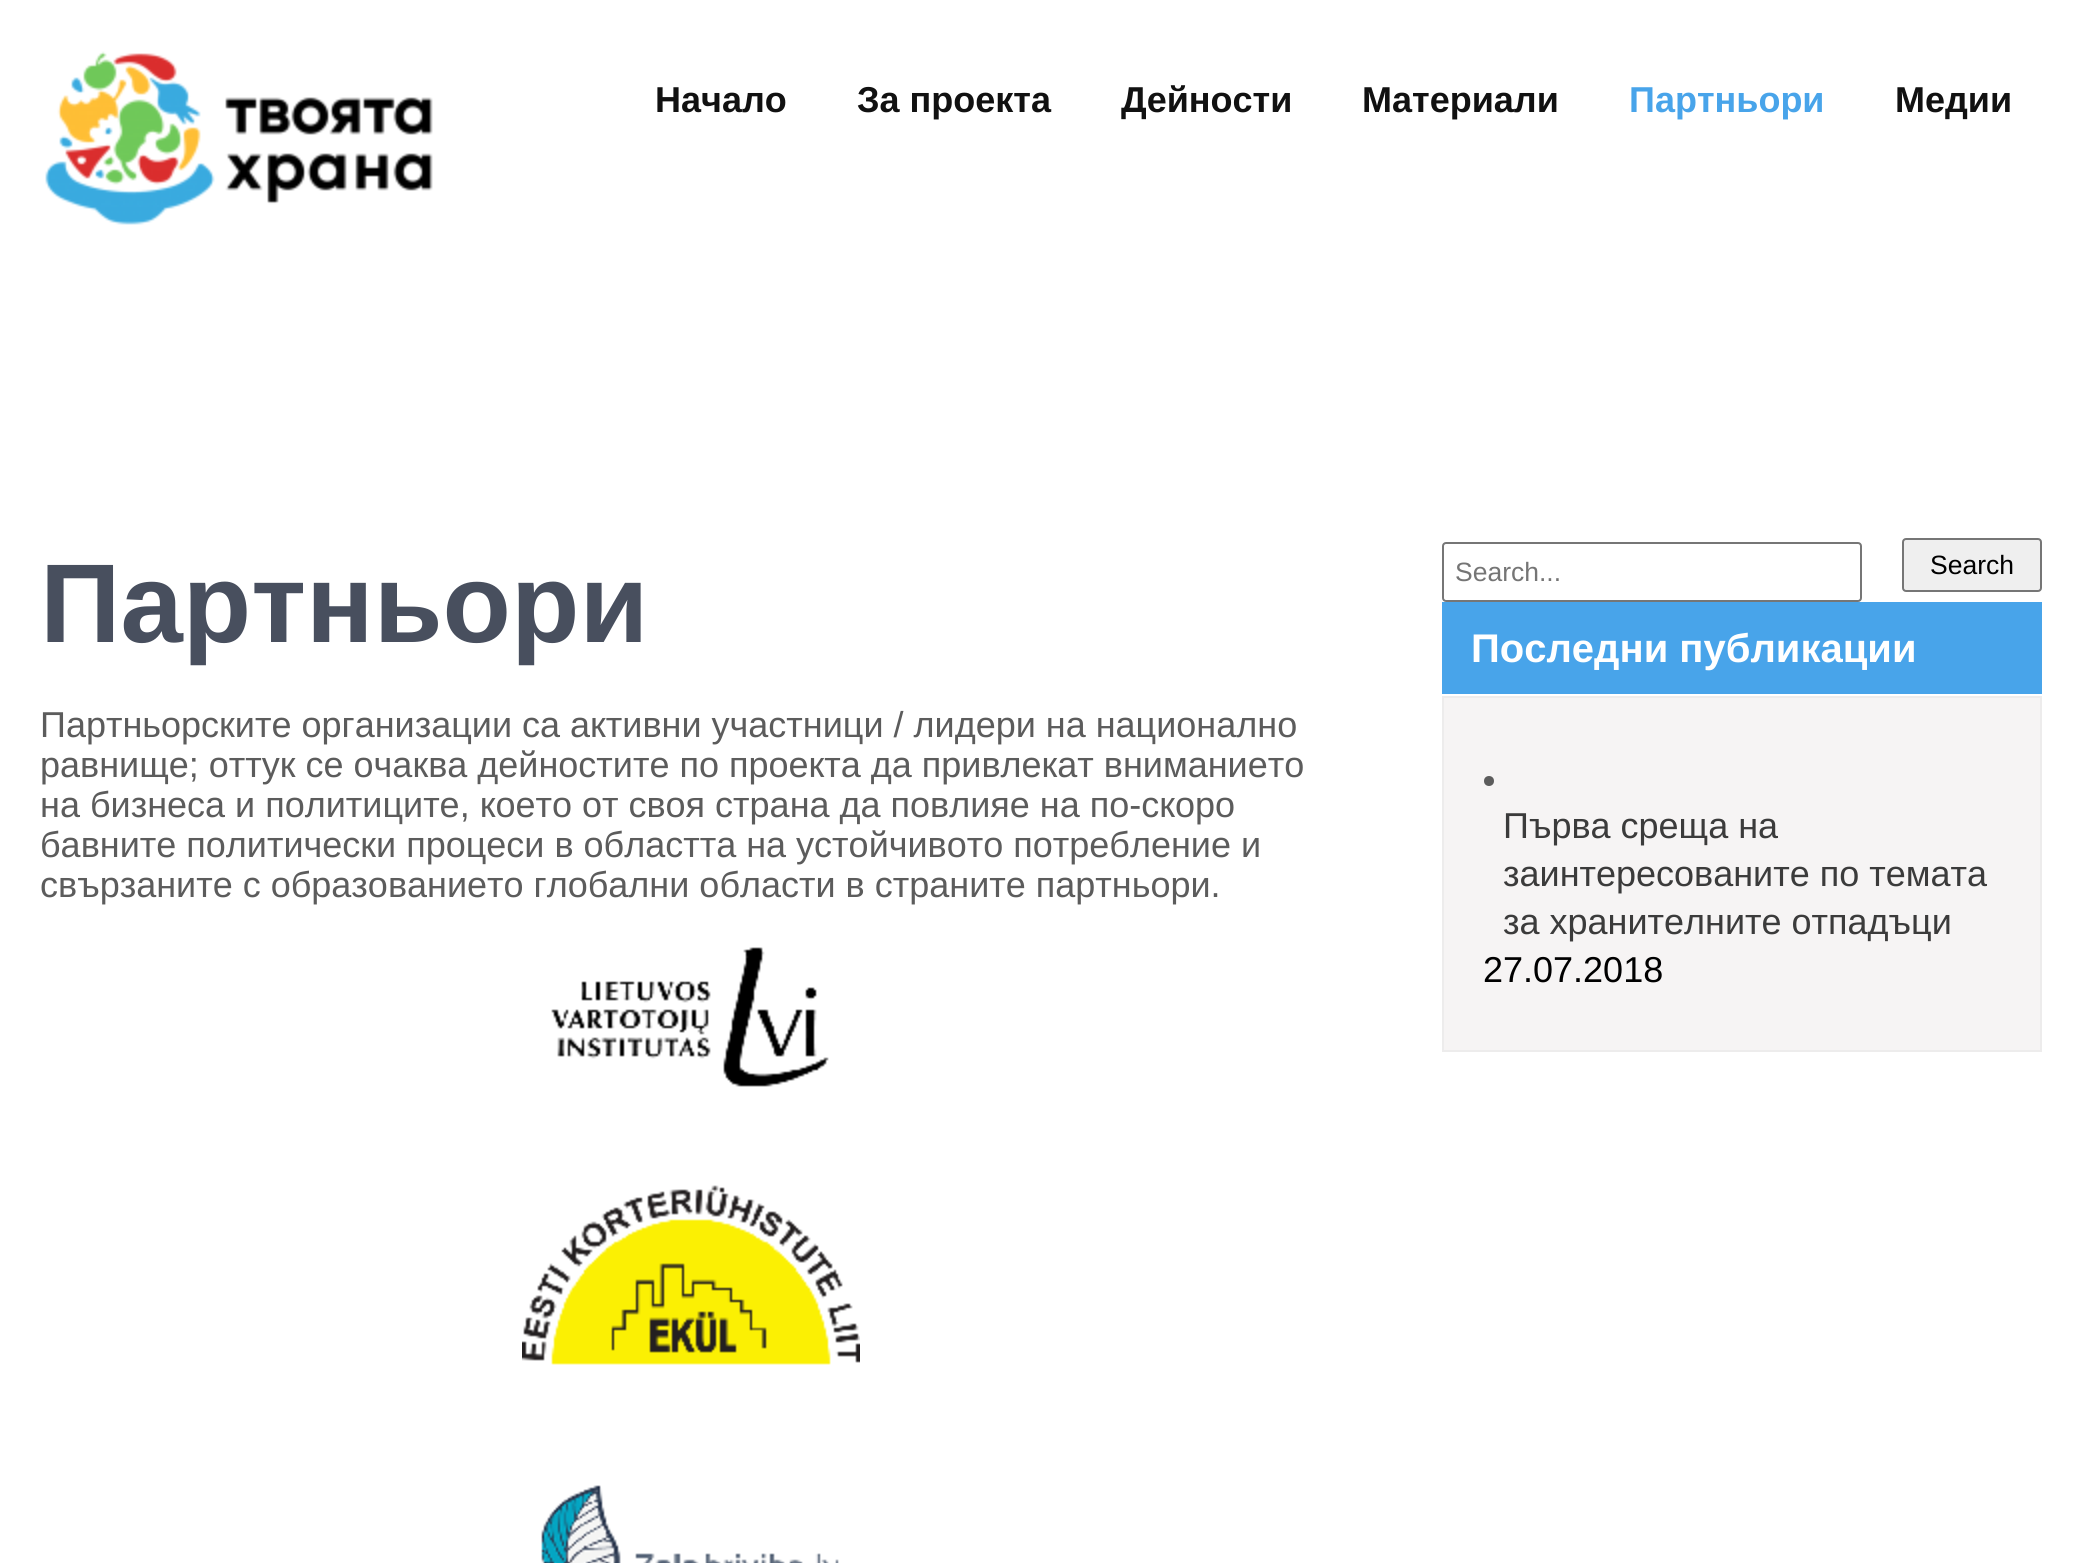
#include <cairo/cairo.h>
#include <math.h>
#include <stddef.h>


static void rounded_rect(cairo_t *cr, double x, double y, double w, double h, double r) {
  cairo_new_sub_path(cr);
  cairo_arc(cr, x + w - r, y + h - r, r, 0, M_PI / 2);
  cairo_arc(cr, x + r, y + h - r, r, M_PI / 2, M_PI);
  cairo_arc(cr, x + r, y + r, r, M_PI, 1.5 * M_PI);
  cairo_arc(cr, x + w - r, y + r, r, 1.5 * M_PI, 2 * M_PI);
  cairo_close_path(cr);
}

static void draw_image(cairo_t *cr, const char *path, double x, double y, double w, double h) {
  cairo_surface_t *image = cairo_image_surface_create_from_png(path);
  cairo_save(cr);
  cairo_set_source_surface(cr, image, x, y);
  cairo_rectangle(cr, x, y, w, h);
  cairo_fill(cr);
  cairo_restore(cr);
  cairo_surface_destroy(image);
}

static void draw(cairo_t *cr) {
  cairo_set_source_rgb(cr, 1, 1, 1);
  cairo_paint(cr);
  draw_image(cr, "images/1.png", 45, 51, 388, 174);
  draw_image(cr, "images/2.png", 551, 947, 278, 140);
  draw_image(cr, "images/3.png", 522, 1185, 338, 180);
  draw_image(cr, "images/4.png", 541, 1485, 298, 78);
  rounded_rect(cr, 1443, 543, 418, 58, 3);
  cairo_set_source_rgb(cr, 118 / 255.0, 118 / 255.0, 118 / 255.0);
  cairo_stroke(cr);
  cairo_set_source_rgb(cr, 239 / 255.0, 239 / 255.0, 239 / 255.0);
  rounded_rect(cr, 1903, 539, 138, 52, 3);
  cairo_fill_preserve(cr);
  cairo_set_source_rgb(cr, 118 / 255.0, 118 / 255.0, 118 / 255.0);
  cairo_stroke(cr);
  cairo_set_source_rgb(cr, 72 / 255.0, 164 / 255.0, 234 / 255.0);
  cairo_rectangle(cr, 1442, 602, 600, 92);
  cairo_fill(cr);
  cairo_set_source_rgb(cr, 246 / 255.0, 244 / 255.0, 244 / 255.0);
  cairo_rectangle(cr, 1443, 697, 598, 354);
  cairo_fill_preserve(cr);
  cairo_set_source_rgb(cr, 237 / 255.0, 236 / 255.0, 236 / 255.0);
  cairo_stroke(cr);
  cairo_set_source_rgb(cr, 92 / 255.0, 92 / 255.0, 92 / 255.0);
  cairo_arc(cr, 1489, 781, 5, 0, 2 * M_PI);
  cairo_fill(cr);
  cairo_select_font_face(cr, "Liberation Sans", CAIRO_FONT_SLANT_NORMAL, CAIRO_FONT_WEIGHT_BOLD);
  cairo_set_font_size(cr, 36);
  cairo_set_source_rgb(cr, 17 / 255.0, 17 / 255.0, 17 / 255.0);
  cairo_move_to(cr, 655, 112);
  cairo_show_text(cr, "Начало");
  cairo_move_to(cr, 857, 112);
  cairo_show_text(cr, "За проекта");
  cairo_move_to(cr, 1121, 112);
  cairo_show_text(cr, "Дейности");
  cairo_move_to(cr, 1362, 112);
  cairo_show_text(cr, "Материали");
  cairo_set_source_rgb(cr, 72 / 255.0, 164 / 255.0, 234 / 255.0);
  cairo_move_to(cr, 1629, 112);
  cairo_show_text(cr, "Партньори");
  cairo_set_source_rgb(cr, 17 / 255.0, 17 / 255.0, 17 / 255.0);
  cairo_move_to(cr, 1895, 112);
  cairo_show_text(cr, "Медии");
  cairo_set_font_size(cr, 112);
  cairo_set_source_rgb(cr, 72 / 255.0, 79 / 255.0, 94 / 255.0);
  cairo_move_to(cr, 40, 642);
  cairo_show_text(cr, "Партньори");
  cairo_select_font_face(cr, "Liberation Sans", CAIRO_FONT_SLANT_NORMAL, CAIRO_FONT_WEIGHT_NORMAL);
  cairo_set_font_size(cr, 36);
  cairo_set_source_rgb(cr, 92 / 255.0, 92 / 255.0, 92 / 255.0);
  cairo_move_to(cr, 40, 737);
  cairo_show_text(cr, "Партньорските организации са активни участници / лидери на национално");
  cairo_move_to(cr, 40, 777);
  cairo_show_text(cr, "равнище; оттук се очаква дейностите по проекта да привлекат вниманието");
  cairo_move_to(cr, 40, 817);
  cairo_show_text(cr, "на бизнеса и политиците, което от своя страна да повлияе на по-скоро");
  cairo_move_to(cr, 40, 857);
  cairo_show_text(cr, "бавните политически процеси в областта на устойчивото потребление и");
  cairo_move_to(cr, 40, 897);
  cairo_show_text(cr, "свързаните с образованието глобални области в страните партньори.");
  cairo_set_font_size(cr, 26.5);
  cairo_set_source_rgb(cr, 117 / 255.0, 117 / 255.0, 117 / 255.0);
  cairo_move_to(cr, 1455, 581);
  cairo_show_text(cr, "Search...");
  cairo_set_source_rgb(cr, 0, 0, 0);
  cairo_move_to(cr, 1930, 574);
  cairo_show_text(cr, "Search");
  cairo_select_font_face(cr, "Liberation Sans", CAIRO_FONT_SLANT_NORMAL, CAIRO_FONT_WEIGHT_BOLD);
  cairo_set_font_size(cr, 40);
  cairo_set_source_rgb(cr, 1, 1, 1);
  cairo_move_to(cr, 1471, 662);
  cairo_show_text(cr, "Последни публикации");
  cairo_select_font_face(cr, "Liberation Sans", CAIRO_FONT_SLANT_NORMAL, CAIRO_FONT_WEIGHT_NORMAL);
  cairo_set_font_size(cr, 36);
  cairo_set_source_rgb(cr, 59 / 255.0, 59 / 255.0, 59 / 255.0);
  cairo_move_to(cr, 1503, 838);
  cairo_show_text(cr, "Първа среща на");
  cairo_move_to(cr, 1503, 886);
  cairo_show_text(cr, "заинтересованите по темата");
  cairo_move_to(cr, 1503, 934);
  cairo_show_text(cr, "за хранителните отпадъци");
  cairo_set_source_rgb(cr, 0, 0, 0);
  cairo_move_to(cr, 1483, 982);
  cairo_show_text(cr, "27.07.2018");
}

int main(void) {
  cairo_surface_t *surface = cairo_image_surface_create(CAIRO_FORMAT_RGB24, 2082, 1563);
  cairo_t *cr = cairo_create(surface);
  cairo_font_options_t *options = cairo_font_options_create();
  cairo_font_options_set_hint_metrics(options, CAIRO_HINT_METRICS_OFF);
  cairo_font_options_set_hint_style(options, CAIRO_HINT_STYLE_NONE);
  cairo_set_font_options(cr, options);
  cairo_set_miter_limit(cr, 4);
  draw(cr);
  cairo_surface_write_to_png(surface, "out.png");
  cairo_font_options_destroy(options);
  cairo_destroy(cr);
  cairo_surface_destroy(surface);
  return 0;
}
